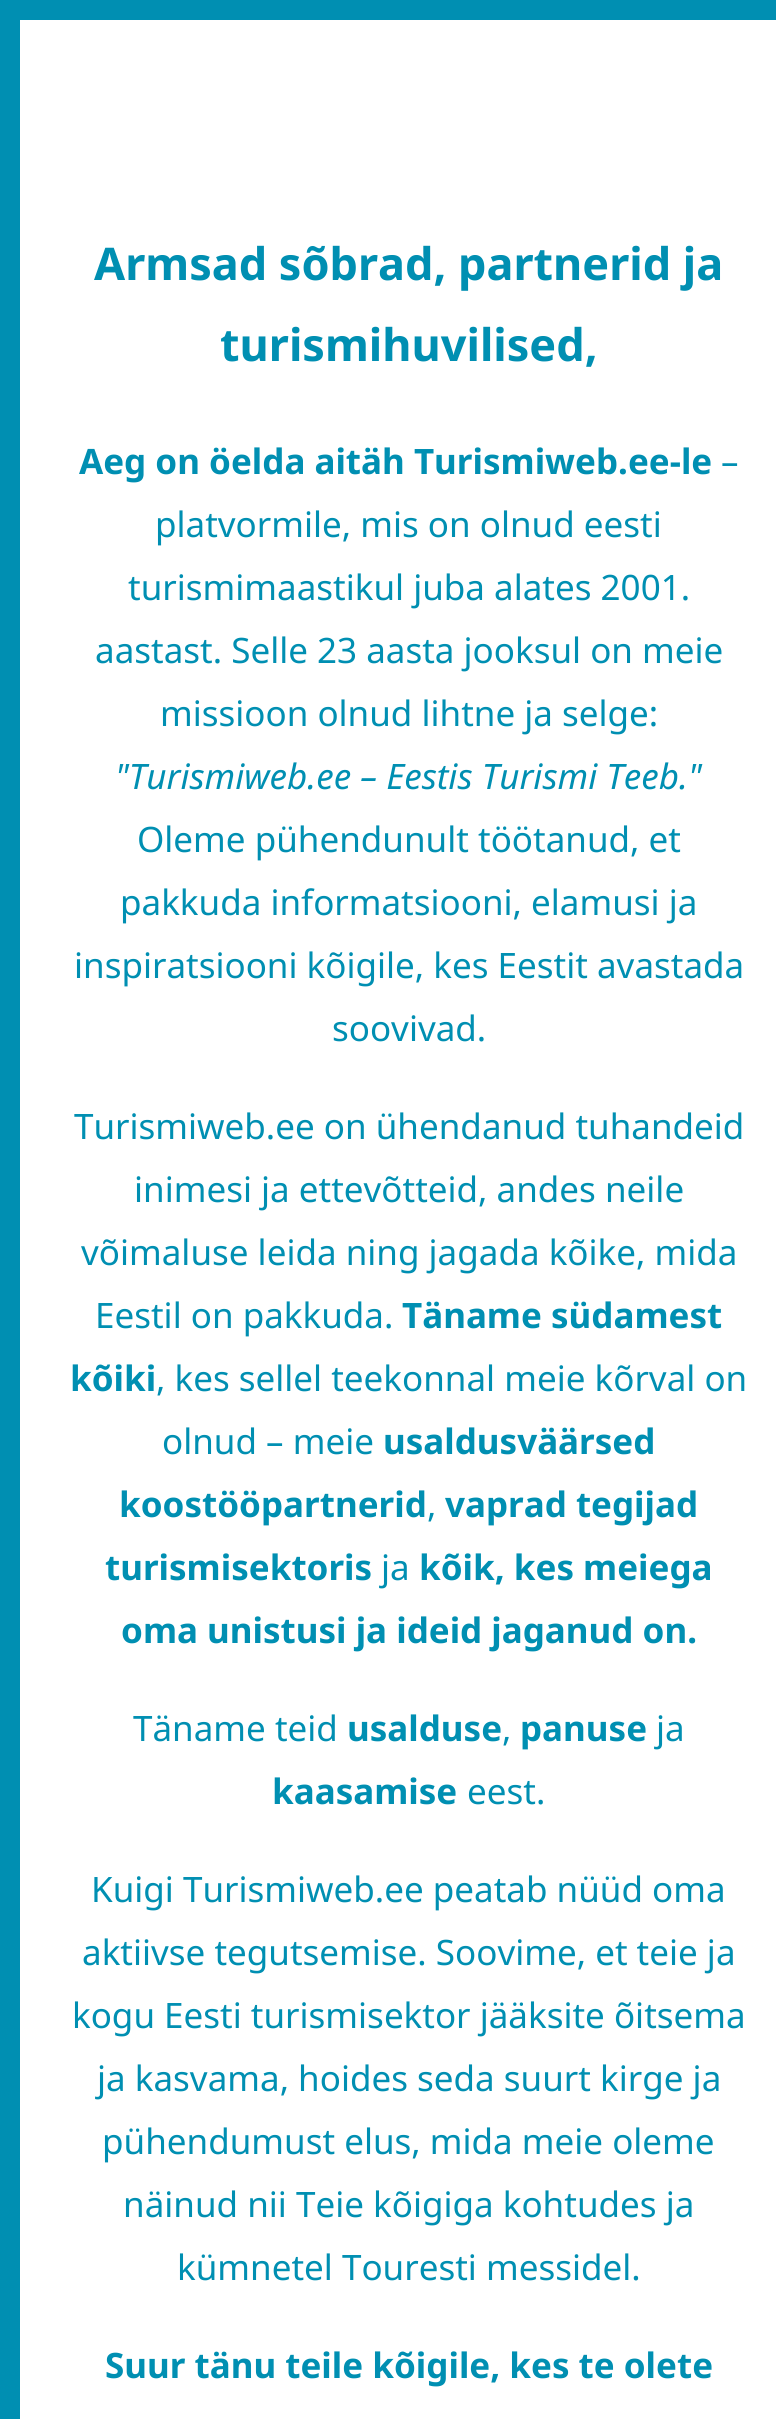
#include <cairo/cairo.h>
#include <math.h>
#include <stddef.h>


static void draw(cairo_t *cr) {
  cairo_set_source_rgb(cr, 0, 143 / 255.0, 178 / 255.0);
  cairo_paint(cr);
  cairo_set_source_rgb(cr, 1, 1, 1);
  cairo_rectangle(cr, 20, 20, 756, 2399);
  cairo_fill(cr);
  cairo_select_font_face(cr, "Noto Sans", CAIRO_FONT_SLANT_NORMAL, CAIRO_FONT_WEIGHT_BOLD);
  cairo_set_font_size(cr, 45);
  cairo_set_source_rgb(cr, 0, 143 / 255.0, 178 / 255.0);
  cairo_move_to(cr, 94, 280);
  cairo_show_text(cr, "Armsad sõbrad, partnerid ja");
  cairo_move_to(cr, 220, 361);
  cairo_show_text(cr, "turismihuvilised,");
  cairo_set_font_size(cr, 35);
  cairo_move_to(cr, 79, 474);
  cairo_show_text(cr, "Aeg on öelda aitäh Turismiweb.ee-le");
  cairo_select_font_face(cr, "Noto Sans", CAIRO_FONT_SLANT_NORMAL, CAIRO_FONT_WEIGHT_NORMAL);
  cairo_move_to(cr, 721, 474);
  cairo_show_text(cr, "–");
  cairo_move_to(cr, 155, 537);
  cairo_show_text(cr, "platvormile, mis on olnud eesti");
  cairo_move_to(cr, 128, 600);
  cairo_show_text(cr, "turismimaastikul juba alates 2001.");
  cairo_move_to(cr, 95, 663);
  cairo_show_text(cr, "aastast. Selle 23 aasta jooksul on meie");
  cairo_move_to(cr, 160, 726);
  cairo_show_text(cr, "missioon olnud lihtne ja selge:");
  cairo_select_font_face(cr, "Noto Sans", CAIRO_FONT_SLANT_ITALIC, CAIRO_FONT_WEIGHT_NORMAL);
  cairo_move_to(cr, 115, 789);
  cairo_show_text(cr, "\"Turismiweb.ee – Eestis Turismi Teeb.\"");
  cairo_select_font_face(cr, "Noto Sans", CAIRO_FONT_SLANT_NORMAL, CAIRO_FONT_WEIGHT_NORMAL);
  cairo_move_to(cr, 137, 852);
  cairo_show_text(cr, "Oleme pühendunult töötanud, et");
  cairo_move_to(cr, 120, 915);
  cairo_show_text(cr, "pakkuda informatsiooni, elamusi ja");
  cairo_move_to(cr, 74, 978);
  cairo_show_text(cr, "inspiratsiooni kõigile, kes Eestit avastada");
  cairo_move_to(cr, 332, 1041);
  cairo_show_text(cr, "soovivad.");
  cairo_move_to(cr, 74, 1139);
  cairo_show_text(cr, "Turismiweb.ee on ühendanud tuhandeid");
  cairo_move_to(cr, 134, 1202);
  cairo_show_text(cr, "inimesi ja ettevõtteid, andes neile");
  cairo_move_to(cr, 81, 1265);
  cairo_show_text(cr, "võimaluse leida ning jagada kõike, mida");
  cairo_move_to(cr, 95, 1328);
  cairo_show_text(cr, "Eestil on pakkuda.");
  cairo_select_font_face(cr, "Noto Sans", CAIRO_FONT_SLANT_NORMAL, CAIRO_FONT_WEIGHT_BOLD);
  cairo_move_to(cr, 402, 1328);
  cairo_show_text(cr, "Täname südamest");
  cairo_move_to(cr, 70, 1391);
  cairo_show_text(cr, "kõiki");
  cairo_select_font_face(cr, "Noto Sans", CAIRO_FONT_SLANT_NORMAL, CAIRO_FONT_WEIGHT_NORMAL);
  cairo_move_to(cr, 156, 1391);
  cairo_show_text(cr, ", kes sellel teekonnal meie kõrval on");
  cairo_move_to(cr, 162, 1454);
  cairo_show_text(cr, "olnud – meie");
  cairo_select_font_face(cr, "Noto Sans", CAIRO_FONT_SLANT_NORMAL, CAIRO_FONT_WEIGHT_BOLD);
  cairo_move_to(cr, 383, 1454);
  cairo_show_text(cr, "usaldusväärsed");
  cairo_move_to(cr, 119, 1517);
  cairo_show_text(cr, "koostööpartnerid");
  cairo_select_font_face(cr, "Noto Sans", CAIRO_FONT_SLANT_NORMAL, CAIRO_FONT_WEIGHT_NORMAL);
  cairo_move_to(cr, 427, 1517);
  cairo_show_text(cr, ",");
  cairo_select_font_face(cr, "Noto Sans", CAIRO_FONT_SLANT_NORMAL, CAIRO_FONT_WEIGHT_BOLD);
  cairo_move_to(cr, 445, 1517);
  cairo_show_text(cr, "vaprad tegijad");
  cairo_move_to(cr, 105, 1580);
  cairo_show_text(cr, "turismisektoris");
  cairo_select_font_face(cr, "Noto Sans", CAIRO_FONT_SLANT_NORMAL, CAIRO_FONT_WEIGHT_NORMAL);
  cairo_move_to(cr, 381, 1580);
  cairo_show_text(cr, "ja");
  cairo_select_font_face(cr, "Noto Sans", CAIRO_FONT_SLANT_NORMAL, CAIRO_FONT_WEIGHT_BOLD);
  cairo_move_to(cr, 419, 1580);
  cairo_show_text(cr, "kõik, kes meiega");
  cairo_move_to(cr, 121, 1643);
  cairo_show_text(cr, "oma unistusi ja ideid jaganud on.");
  cairo_select_font_face(cr, "Noto Sans", CAIRO_FONT_SLANT_NORMAL, CAIRO_FONT_WEIGHT_NORMAL);
  cairo_move_to(cr, 133, 1741);
  cairo_show_text(cr, "Täname teid");
  cairo_select_font_face(cr, "Noto Sans", CAIRO_FONT_SLANT_NORMAL, CAIRO_FONT_WEIGHT_BOLD);
  cairo_move_to(cr, 347, 1741);
  cairo_show_text(cr, "usalduse");
  cairo_select_font_face(cr, "Noto Sans", CAIRO_FONT_SLANT_NORMAL, CAIRO_FONT_WEIGHT_NORMAL);
  cairo_move_to(cr, 502, 1741);
  cairo_show_text(cr, ",");
  cairo_select_font_face(cr, "Noto Sans", CAIRO_FONT_SLANT_NORMAL, CAIRO_FONT_WEIGHT_BOLD);
  cairo_move_to(cr, 520, 1741);
  cairo_show_text(cr, "panuse");
  cairo_select_font_face(cr, "Noto Sans", CAIRO_FONT_SLANT_NORMAL, CAIRO_FONT_WEIGHT_NORMAL);
  cairo_move_to(cr, 656, 1741);
  cairo_show_text(cr, "ja");
  cairo_select_font_face(cr, "Noto Sans", CAIRO_FONT_SLANT_NORMAL, CAIRO_FONT_WEIGHT_BOLD);
  cairo_move_to(cr, 272, 1804);
  cairo_show_text(cr, "kaasamise");
  cairo_select_font_face(cr, "Noto Sans", CAIRO_FONT_SLANT_NORMAL, CAIRO_FONT_WEIGHT_NORMAL);
  cairo_move_to(cr, 467, 1804);
  cairo_show_text(cr, "eest.");
  cairo_move_to(cr, 91, 1902);
  cairo_show_text(cr, "Kuigi Turismiweb.ee peatab nüüd oma");
  cairo_move_to(cr, 82, 1965);
  cairo_show_text(cr, "aktiivse tegutsemise. Soovime, et teie ja");
  cairo_move_to(cr, 72, 2028);
  cairo_show_text(cr, "kogu Eesti turismisektor jääksite õitsema");
  cairo_move_to(cr, 97, 2091);
  cairo_show_text(cr, "ja kasvama, hoides seda suurt kirge ja");
  cairo_move_to(cr, 102, 2154);
  cairo_show_text(cr, "pühendumust elus, mida meie oleme");
  cairo_move_to(cr, 123, 2217);
  cairo_show_text(cr, "näinud nii Teie kõigiga kohtudes ja");
  cairo_move_to(cr, 177, 2280);
  cairo_show_text(cr, "kümnetel Touresti messidel.");
  cairo_select_font_face(cr, "Noto Sans", CAIRO_FONT_SLANT_NORMAL, CAIRO_FONT_WEIGHT_BOLD);
  cairo_move_to(cr, 105, 2378);
  cairo_show_text(cr, "Suur tänu teile kõigile, kes te olete");
}

int main(void) {
  cairo_surface_t *surface = cairo_image_surface_create(CAIRO_FORMAT_RGB24, 776, 2419);
  cairo_t *cr = cairo_create(surface);
  cairo_font_options_t *options = cairo_font_options_create();
  cairo_font_options_set_hint_metrics(options, CAIRO_HINT_METRICS_OFF);
  cairo_font_options_set_hint_style(options, CAIRO_HINT_STYLE_NONE);
  cairo_set_font_options(cr, options);
  cairo_set_miter_limit(cr, 4);
  draw(cr);
  cairo_surface_write_to_png(surface, "out.png");
  cairo_font_options_destroy(options);
  cairo_destroy(cr);
  cairo_surface_destroy(surface);
  return 0;
}
